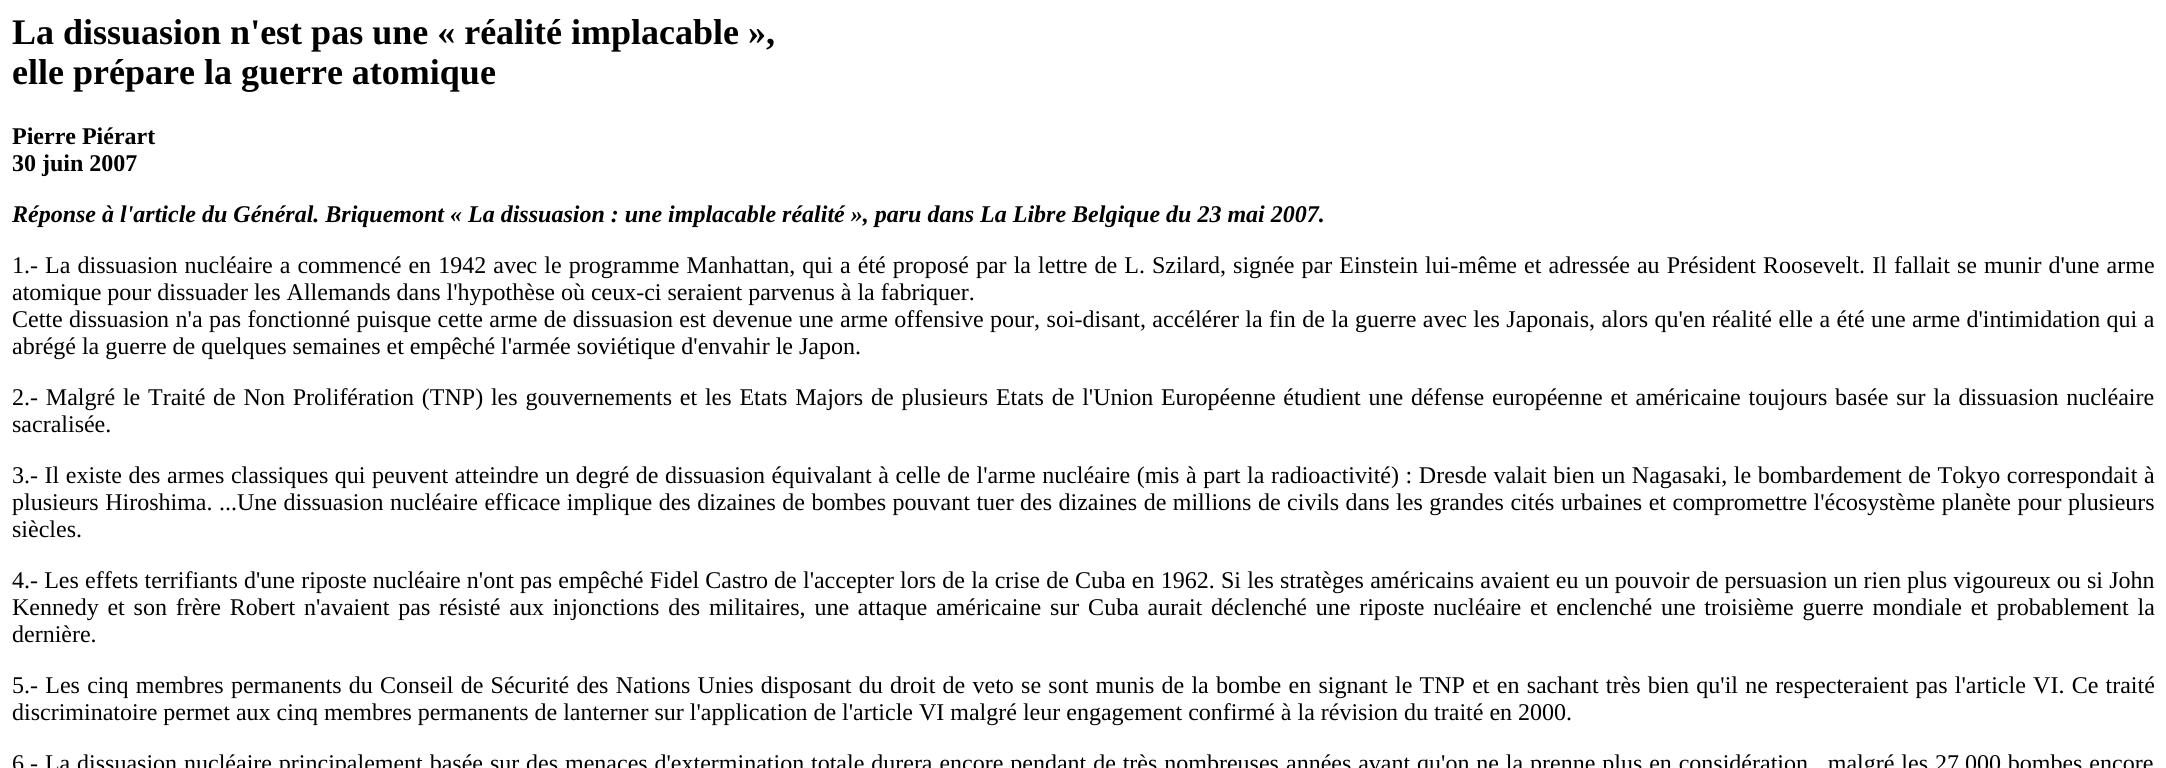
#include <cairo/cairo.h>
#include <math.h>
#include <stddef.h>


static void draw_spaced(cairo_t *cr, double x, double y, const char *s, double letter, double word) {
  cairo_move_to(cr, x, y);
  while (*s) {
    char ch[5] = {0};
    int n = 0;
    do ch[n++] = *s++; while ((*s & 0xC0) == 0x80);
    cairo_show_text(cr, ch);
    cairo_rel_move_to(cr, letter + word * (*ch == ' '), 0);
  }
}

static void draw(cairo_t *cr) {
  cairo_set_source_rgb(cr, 1, 1, 1);
  cairo_paint(cr);
  cairo_select_font_face(cr, "Liberation Serif", CAIRO_FONT_SLANT_NORMAL, CAIRO_FONT_WEIGHT_BOLD);
  cairo_set_font_size(cr, 36);
  cairo_set_source_rgb(cr, 0, 0, 0);
  cairo_move_to(cr, 12, 44);
  cairo_show_text(cr, "La dissuasion n'est pas une « réalité implacable »,");
  cairo_move_to(cr, 12, 84);
  cairo_show_text(cr, "elle prépare la guerre atomique");
  cairo_set_font_size(cr, 24);
  cairo_move_to(cr, 12, 144);
  cairo_show_text(cr, "Pierre Piérart");
  cairo_move_to(cr, 12, 171);
  cairo_show_text(cr, "30 juin 2007");
  cairo_select_font_face(cr, "Liberation Serif", CAIRO_FONT_SLANT_ITALIC, CAIRO_FONT_WEIGHT_BOLD);
  cairo_move_to(cr, 12, 222);
  cairo_show_text(cr, "Réponse à l'article du Général. Briquemont « La dissuasion : une implacable réalité », paru dans La Libre Belgique du 23 mai 2007.");
  cairo_select_font_face(cr, "Liberation Serif", CAIRO_FONT_SLANT_NORMAL, CAIRO_FONT_WEIGHT_NORMAL);
  draw_spaced(cr, 12, 273, "1.- La dissuasion nucléaire a commencé en 1942 avec le programme Manhattan, qui a été proposé par la lettre de L. Szilard, signée par Einstein lui-même et adressée au Président Roosevelt. Il fallait se munir d'une arme", 0, 1.1);
  cairo_move_to(cr, 12, 300);
  cairo_show_text(cr, "atomique pour dissuader les Allemands dans l'hypothèse où ceux-ci seraient parvenus à la fabriquer.");
  draw_spaced(cr, 12, 327, "Cette dissuasion n'a pas fonctionné puisque cette arme de dissuasion est devenue une arme offensive pour, soi-disant, accélérer la fin de la guerre avec les Japonais, alors qu'en réalité elle a été une arme d'intimidation qui a", 0, 0.45);
  cairo_move_to(cr, 12, 354);
  cairo_show_text(cr, "abrégé la guerre de quelques semaines et empêché l'armée soviétique d'envahir le Japon.");
  draw_spaced(cr, 12, 405, "2.- Malgré le Traité de Non Prolifération (TNP) les gouvernements et les Etats Majors de plusieurs Etats de l'Union Européenne étudient une défense européenne et américaine toujours basée sur la dissuasion nucléaire", 0, 1.8);
  cairo_move_to(cr, 12, 432);
  cairo_show_text(cr, "sacralisée.");
  draw_spaced(cr, 12, 483, "3.- Il existe des armes classiques qui peuvent atteindre un degré de dissuasion équivalant à celle de l'arme nucléaire (mis à part la radioactivité) : Dresde valait bien un Nagasaki, le bombardement de Tokyo correspondait à", 0, 0.6);
  draw_spaced(cr, 12, 510, "plusieurs Hiroshima. ...Une dissuasion nucléaire efficace implique des dizaines de bombes pouvant tuer", 0, 0.5);
  draw_spaced(cr, 1020, 510, "des dizaines de millions de civils dans les grandes cités urbaines et compromettre l'écosystème planète pour plusieurs", 0, 0.5);
  cairo_move_to(cr, 12, 537);
  cairo_show_text(cr, "siècles.");
  draw_spaced(cr, 12, 588, "4.- Les effets terrifiants d'une riposte nucléaire n'ont pas empêché Fidel Castro de l'accepter lors de la crise de Cuba en 1962. Si les stratèges américains avaient eu un pouvoir de persuasion un rien plus vigoureux ou si John", 0, 0.2);
  draw_spaced(cr, 12, 615, "Kennedy et son frère Robert n'avaient pas résisté aux injonctions des militaires, une attaque américaine sur Cuba aurait déclenché une riposte nucléaire et enclenché une troisième guerre mondiale et probablement la", 0, 2.8);
  cairo_move_to(cr, 12, 642);
  cairo_show_text(cr, "dernière.");
  draw_spaced(cr, 12, 693, "5.- Les cinq membres permanents du Conseil de Sécurité des Nations Unies disposant du droit de veto se sont munis de la bombe en signant le TNP et en sachant très bien qu'il ne respecteraient pas l'article VI. Ce traité", 0, 1.25);
  cairo_move_to(cr, 12, 720);
  cairo_show_text(cr, "discriminatoire permet aux cinq membres permanents de lanterner sur l'application de l'article VI malgré leur engagement confirmé à la révision du traité en 2000.");
  draw_spaced(cr, 12, 771, "6.- La dissuasion nucléaire principalement basée sur des menaces d'extermination totale durera encore pendant de très nombreuses", 0, 0.9);
  draw_spaced(cr, 1286, 771, "années avant qu'on ne la prenne plus en considération , malgré les 27.000 bombes encore", 0, 0.9);
}

int main(void) {
  cairo_surface_t *surface = cairo_image_surface_create(CAIRO_FORMAT_RGB24, 2166, 768);
  cairo_t *cr = cairo_create(surface);
  cairo_font_options_t *options = cairo_font_options_create();
  cairo_font_options_set_hint_metrics(options, CAIRO_HINT_METRICS_OFF);
  cairo_font_options_set_hint_style(options, CAIRO_HINT_STYLE_NONE);
  cairo_set_font_options(cr, options);
  cairo_set_miter_limit(cr, 4);
  draw(cr);
  cairo_surface_write_to_png(surface, "out.png");
  cairo_font_options_destroy(options);
  cairo_destroy(cr);
  cairo_surface_destroy(surface);
  return 0;
}
